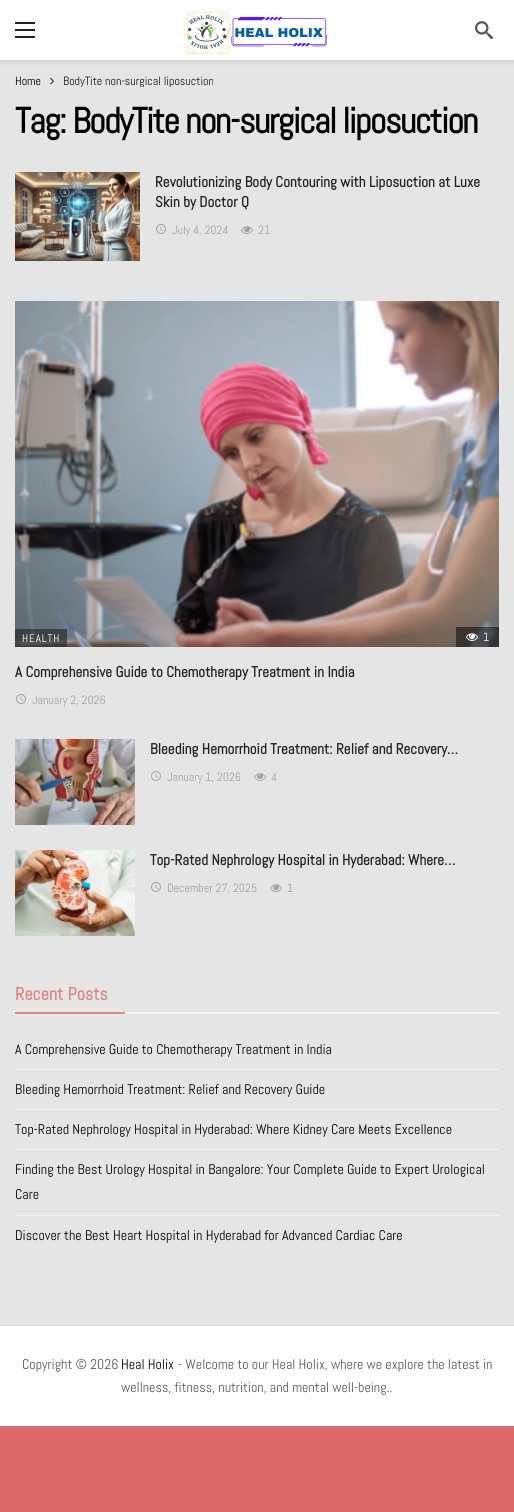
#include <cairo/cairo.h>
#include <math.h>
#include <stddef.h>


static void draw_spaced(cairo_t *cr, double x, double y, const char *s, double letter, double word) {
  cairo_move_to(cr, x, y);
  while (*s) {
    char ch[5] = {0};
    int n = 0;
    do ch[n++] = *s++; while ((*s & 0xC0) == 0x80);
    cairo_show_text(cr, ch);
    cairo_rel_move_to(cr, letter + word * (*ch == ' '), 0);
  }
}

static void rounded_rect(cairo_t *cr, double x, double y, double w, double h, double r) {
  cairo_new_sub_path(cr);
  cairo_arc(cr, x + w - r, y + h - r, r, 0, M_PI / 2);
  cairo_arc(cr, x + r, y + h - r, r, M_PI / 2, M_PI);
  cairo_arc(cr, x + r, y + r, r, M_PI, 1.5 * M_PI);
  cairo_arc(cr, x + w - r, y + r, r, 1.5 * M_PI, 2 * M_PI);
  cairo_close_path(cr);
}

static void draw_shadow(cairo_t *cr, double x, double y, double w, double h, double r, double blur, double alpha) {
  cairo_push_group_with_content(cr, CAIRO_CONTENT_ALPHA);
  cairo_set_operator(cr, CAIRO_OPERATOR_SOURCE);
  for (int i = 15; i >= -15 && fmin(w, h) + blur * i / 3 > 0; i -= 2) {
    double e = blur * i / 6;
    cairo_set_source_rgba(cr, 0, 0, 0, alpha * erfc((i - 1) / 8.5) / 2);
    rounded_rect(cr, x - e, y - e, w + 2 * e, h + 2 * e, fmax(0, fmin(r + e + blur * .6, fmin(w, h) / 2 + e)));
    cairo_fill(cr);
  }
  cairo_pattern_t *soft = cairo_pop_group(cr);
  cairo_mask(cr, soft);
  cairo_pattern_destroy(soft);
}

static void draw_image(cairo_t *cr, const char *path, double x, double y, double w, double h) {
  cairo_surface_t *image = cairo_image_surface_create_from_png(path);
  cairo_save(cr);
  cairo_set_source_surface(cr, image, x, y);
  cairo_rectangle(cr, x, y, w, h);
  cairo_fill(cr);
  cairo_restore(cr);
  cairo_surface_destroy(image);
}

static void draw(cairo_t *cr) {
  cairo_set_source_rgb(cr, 221 / 255.0, 106 / 255.0, 106 / 255.0);
  cairo_paint(cr);
  cairo_set_source_rgb(cr, 229 / 255.0, 229 / 255.0, 229 / 255.0);
  cairo_rectangle(cr, 0, 60, 514, 1265);
  cairo_fill(cr);
  cairo_set_source_rgb(cr, 0, 0, 0);
  draw_shadow(cr, 0, 2, 514, 60, 0, 3, 0.1);
  cairo_set_source_rgb(cr, 1, 1, 1);
  cairo_rectangle(cr, 0, 0, 514, 60);
  cairo_fill(cr);
  cairo_set_source_rgb(cr, 33 / 255.0, 33 / 255.0, 33 / 255.0);
  cairo_rectangle(cr, 15, 22, 20, 2);
  cairo_fill(cr);
  cairo_rectangle(cr, 15, 29, 20, 2);
  cairo_fill(cr);
  cairo_rectangle(cr, 15, 36, 20, 2);
  cairo_fill(cr);
  draw_image(cr, "images/1.png", 184, 9, 143, 46);
  draw_image(cr, "images/2.png", 475, 21, 18, 19);
  draw_image(cr, "images/3.png", 50, 77, 4, 8);
  draw_image(cr, "images/4.png", 15, 172, 125, 89);
  draw_image(cr, "images/5.png", 156, 224, 10, 10);
  draw_image(cr, "images/6.png", 241, 226, 12, 8);
  draw_image(cr, "images/7.png", 15, 301, 484, 346);
  cairo_set_source_rgba(cr, 38 / 255.0, 38 / 255.0, 38 / 255.0, 0.63);
  cairo_rectangle(cr, 15, 629, 52, 18);
  cairo_fill(cr);
  cairo_set_source_rgba(cr, 0, 0, 0, 0.5);
  cairo_rectangle(cr, 456, 627, 43, 20);
  cairo_fill(cr);
  draw_image(cr, "images/8.png", 466, 633, 12, 8);
  draw_image(cr, "images/5.png", 16, 694, 10, 10);
  draw_image(cr, "images/9.png", 15, 739, 120, 86);
  draw_image(cr, "images/5.png", 151, 771, 10, 10);
  draw_image(cr, "images/6.png", 254, 773, 12, 8);
  draw_image(cr, "images/10.png", 15, 850, 120, 86);
  draw_image(cr, "images/5.png", 151, 882, 10, 10);
  draw_image(cr, "images/6.png", 270, 884, 12, 8);
  cairo_set_source_rgb(cr, 221 / 255.0, 133 / 255.0, 133 / 255.0);
  cairo_rectangle(cr, 15, 1012, 110, 2);
  cairo_fill(cr);
  cairo_set_source_rgb(cr, 244 / 255.0, 244 / 255.0, 244 / 255.0);
  cairo_rectangle(cr, 125, 1012, 374, 2);
  cairo_fill(cr);
  cairo_rectangle(cr, 15, 1069, 484, 1);
  cairo_fill(cr);
  cairo_rectangle(cr, 15, 1109, 484, 1);
  cairo_fill(cr);
  cairo_rectangle(cr, 15, 1149, 484, 1);
  cairo_fill(cr);
  cairo_rectangle(cr, 15, 1215, 484, 1);
  cairo_fill(cr);
  cairo_set_source_rgb(cr, 1, 1, 1);
  cairo_rectangle(cr, 0, 1326, 514, 100);
  cairo_fill(cr);
  cairo_set_source_rgb(cr, 217 / 255.0, 217 / 255.0, 217 / 255.0);
  cairo_rectangle(cr, 0, 1325, 514, 1);
  cairo_fill(cr);
  cairo_select_font_face(cr, "Abel", CAIRO_FONT_SLANT_NORMAL, CAIRO_FONT_WEIGHT_NORMAL);
  cairo_set_font_size(cr, 12);
  cairo_set_source_rgb(cr, 0, 0, 0);
  cairo_move_to(cr, 15, 85);
  cairo_show_text(cr, "Home");
  cairo_save(cr);
  cairo_rectangle(cr, 15, 75, 484, 12);
  cairo_clip(cr);
  cairo_set_source_rgb(cr, 23 / 255.0, 23 / 255.0, 23 / 255.0);
  cairo_move_to(cr, 63, 85);
  cairo_show_text(cr, "BodyTite non-surgical liposuction");
  cairo_restore(cr);
  cairo_select_font_face(cr, "Abel", CAIRO_FONT_SLANT_NORMAL, CAIRO_FONT_WEIGHT_BOLD);
  cairo_set_font_size(cr, 36);
  draw_spaced(cr, 15, 133, "Tag: BodyTite non-surgical liposuction", -1.45, 0);
  cairo_set_font_size(cr, 15);
  cairo_set_source_rgb(cr, 33 / 255.0, 33 / 255.0, 33 / 255.0);
  cairo_move_to(cr, 155, 187);
  cairo_show_text(cr, "Revolutionizing Body Contouring with Liposuction at Luxe");
  cairo_move_to(cr, 155, 207);
  cairo_show_text(cr, "Skin by Doctor Q");
  cairo_select_font_face(cr, "Abel", CAIRO_FONT_SLANT_NORMAL, CAIRO_FONT_WEIGHT_NORMAL);
  cairo_set_font_size(cr, 12);
  cairo_set_source_rgb(cr, 160 / 255.0, 160 / 255.0, 160 / 255.0);
  cairo_move_to(cr, 172, 234);
  cairo_show_text(cr, "July 4, 2024");
  cairo_move_to(cr, 258, 234);
  cairo_show_text(cr, "21");
  cairo_set_font_size(cr, 11);
  cairo_set_source_rgb(cr, 1, 1, 1);
  draw_spaced(cr, 22, 642, "HEALTH", 1, 0);
  cairo_set_font_size(cr, 12);
  cairo_move_to(cr, 483, 641);
  cairo_show_text(cr, "1");
  cairo_select_font_face(cr, "Abel", CAIRO_FONT_SLANT_NORMAL, CAIRO_FONT_WEIGHT_BOLD);
  cairo_set_font_size(cr, 15);
  cairo_set_source_rgb(cr, 33 / 255.0, 33 / 255.0, 33 / 255.0);
  cairo_move_to(cr, 15, 677);
  cairo_show_text(cr, "A Comprehensive Guide to Chemotherapy Treatment in India");
  cairo_select_font_face(cr, "Abel", CAIRO_FONT_SLANT_NORMAL, CAIRO_FONT_WEIGHT_NORMAL);
  cairo_set_font_size(cr, 12);
  cairo_set_source_rgb(cr, 160 / 255.0, 160 / 255.0, 160 / 255.0);
  cairo_move_to(cr, 32, 704);
  cairo_show_text(cr, "January 2, 2026");
  cairo_select_font_face(cr, "Abel", CAIRO_FONT_SLANT_NORMAL, CAIRO_FONT_WEIGHT_BOLD);
  cairo_set_font_size(cr, 15);
  cairo_set_source_rgb(cr, 33 / 255.0, 33 / 255.0, 33 / 255.0);
  cairo_move_to(cr, 150, 754);
  cairo_show_text(cr, "Bleeding Hemorrhoid Treatment: Relief and Recovery…");
  cairo_select_font_face(cr, "Abel", CAIRO_FONT_SLANT_NORMAL, CAIRO_FONT_WEIGHT_NORMAL);
  cairo_set_font_size(cr, 12);
  cairo_set_source_rgb(cr, 160 / 255.0, 160 / 255.0, 160 / 255.0);
  cairo_move_to(cr, 167, 781);
  cairo_show_text(cr, "January 1, 2026");
  cairo_move_to(cr, 271, 781);
  cairo_show_text(cr, "4");
  cairo_select_font_face(cr, "Abel", CAIRO_FONT_SLANT_NORMAL, CAIRO_FONT_WEIGHT_BOLD);
  cairo_set_font_size(cr, 15);
  cairo_set_source_rgb(cr, 33 / 255.0, 33 / 255.0, 33 / 255.0);
  cairo_move_to(cr, 150, 865);
  cairo_show_text(cr, "Top-Rated Nephrology Hospital in Hyderabad: Where…");
  cairo_select_font_face(cr, "Abel", CAIRO_FONT_SLANT_NORMAL, CAIRO_FONT_WEIGHT_NORMAL);
  cairo_set_font_size(cr, 12);
  cairo_set_source_rgb(cr, 160 / 255.0, 160 / 255.0, 160 / 255.0);
  cairo_move_to(cr, 167, 892);
  cairo_show_text(cr, "December 27, 2025");
  cairo_move_to(cr, 287, 892);
  cairo_show_text(cr, "1");
  cairo_select_font_face(cr, "Abel", CAIRO_FONT_SLANT_NORMAL, CAIRO_FONT_WEIGHT_BOLD);
  cairo_set_font_size(cr, 18);
  cairo_set_source_rgb(cr, 221 / 255.0, 133 / 255.0, 133 / 255.0);
  cairo_move_to(cr, 15, 1000);
  cairo_show_text(cr, "Recent Posts");
  cairo_select_font_face(cr, "Abel", CAIRO_FONT_SLANT_NORMAL, CAIRO_FONT_WEIGHT_NORMAL);
  cairo_set_font_size(cr, 14);
  cairo_set_source_rgb(cr, 0, 0, 0);
  cairo_move_to(cr, 15, 1054);
  cairo_show_text(cr, "A Comprehensive Guide to Chemotherapy Treatment in India");
  cairo_move_to(cr, 15, 1094);
  cairo_show_text(cr, "Bleeding Hemorrhoid Treatment: Relief and Recovery Guide");
  cairo_move_to(cr, 15, 1134);
  cairo_show_text(cr, "Top-Rated Nephrology Hospital in Hyderabad: Where Kidney Care Meets Excellence");
  cairo_move_to(cr, 15, 1174);
  cairo_show_text(cr, "Finding the Best Urology Hospital in Bangalore: Your Complete Guide to Expert Urological");
  cairo_move_to(cr, 15, 1199);
  cairo_show_text(cr, "Care");
  cairo_move_to(cr, 15, 1240);
  cairo_show_text(cr, "Discover the Best Heart Hospital in Hyderabad for Advanced Cardiac Care");
  cairo_set_source_rgb(cr, 83 / 255.0, 88 / 255.0, 92 / 255.0);
  cairo_move_to(cr, 22, 1369);
  cairo_show_text(cr, "Copyright © 2026");
  cairo_set_source_rgb(cr, 0, 0, 0);
  cairo_move_to(cr, 121, 1369);
  cairo_show_text(cr, "Heal Holix");
  cairo_set_source_rgb(cr, 83 / 255.0, 88 / 255.0, 92 / 255.0);
  cairo_move_to(cr, 178, 1369);
  cairo_show_text(cr, "- Welcome to our Heal Holix, where we explore the latest in");
  cairo_move_to(cr, 121, 1392);
  cairo_show_text(cr, "wellness, fitness, nutrition, and mental well-being..");
}

int main(void) {
  cairo_surface_t *surface = cairo_image_surface_create(CAIRO_FORMAT_RGB24, 514, 1512);
  cairo_t *cr = cairo_create(surface);
  cairo_font_options_t *options = cairo_font_options_create();
  cairo_font_options_set_hint_metrics(options, CAIRO_HINT_METRICS_OFF);
  cairo_font_options_set_hint_style(options, CAIRO_HINT_STYLE_NONE);
  cairo_set_font_options(cr, options);
  cairo_set_miter_limit(cr, 4);
  draw(cr);
  cairo_surface_write_to_png(surface, "out.png");
  cairo_font_options_destroy(options);
  cairo_destroy(cr);
  cairo_surface_destroy(surface);
  return 0;
}
